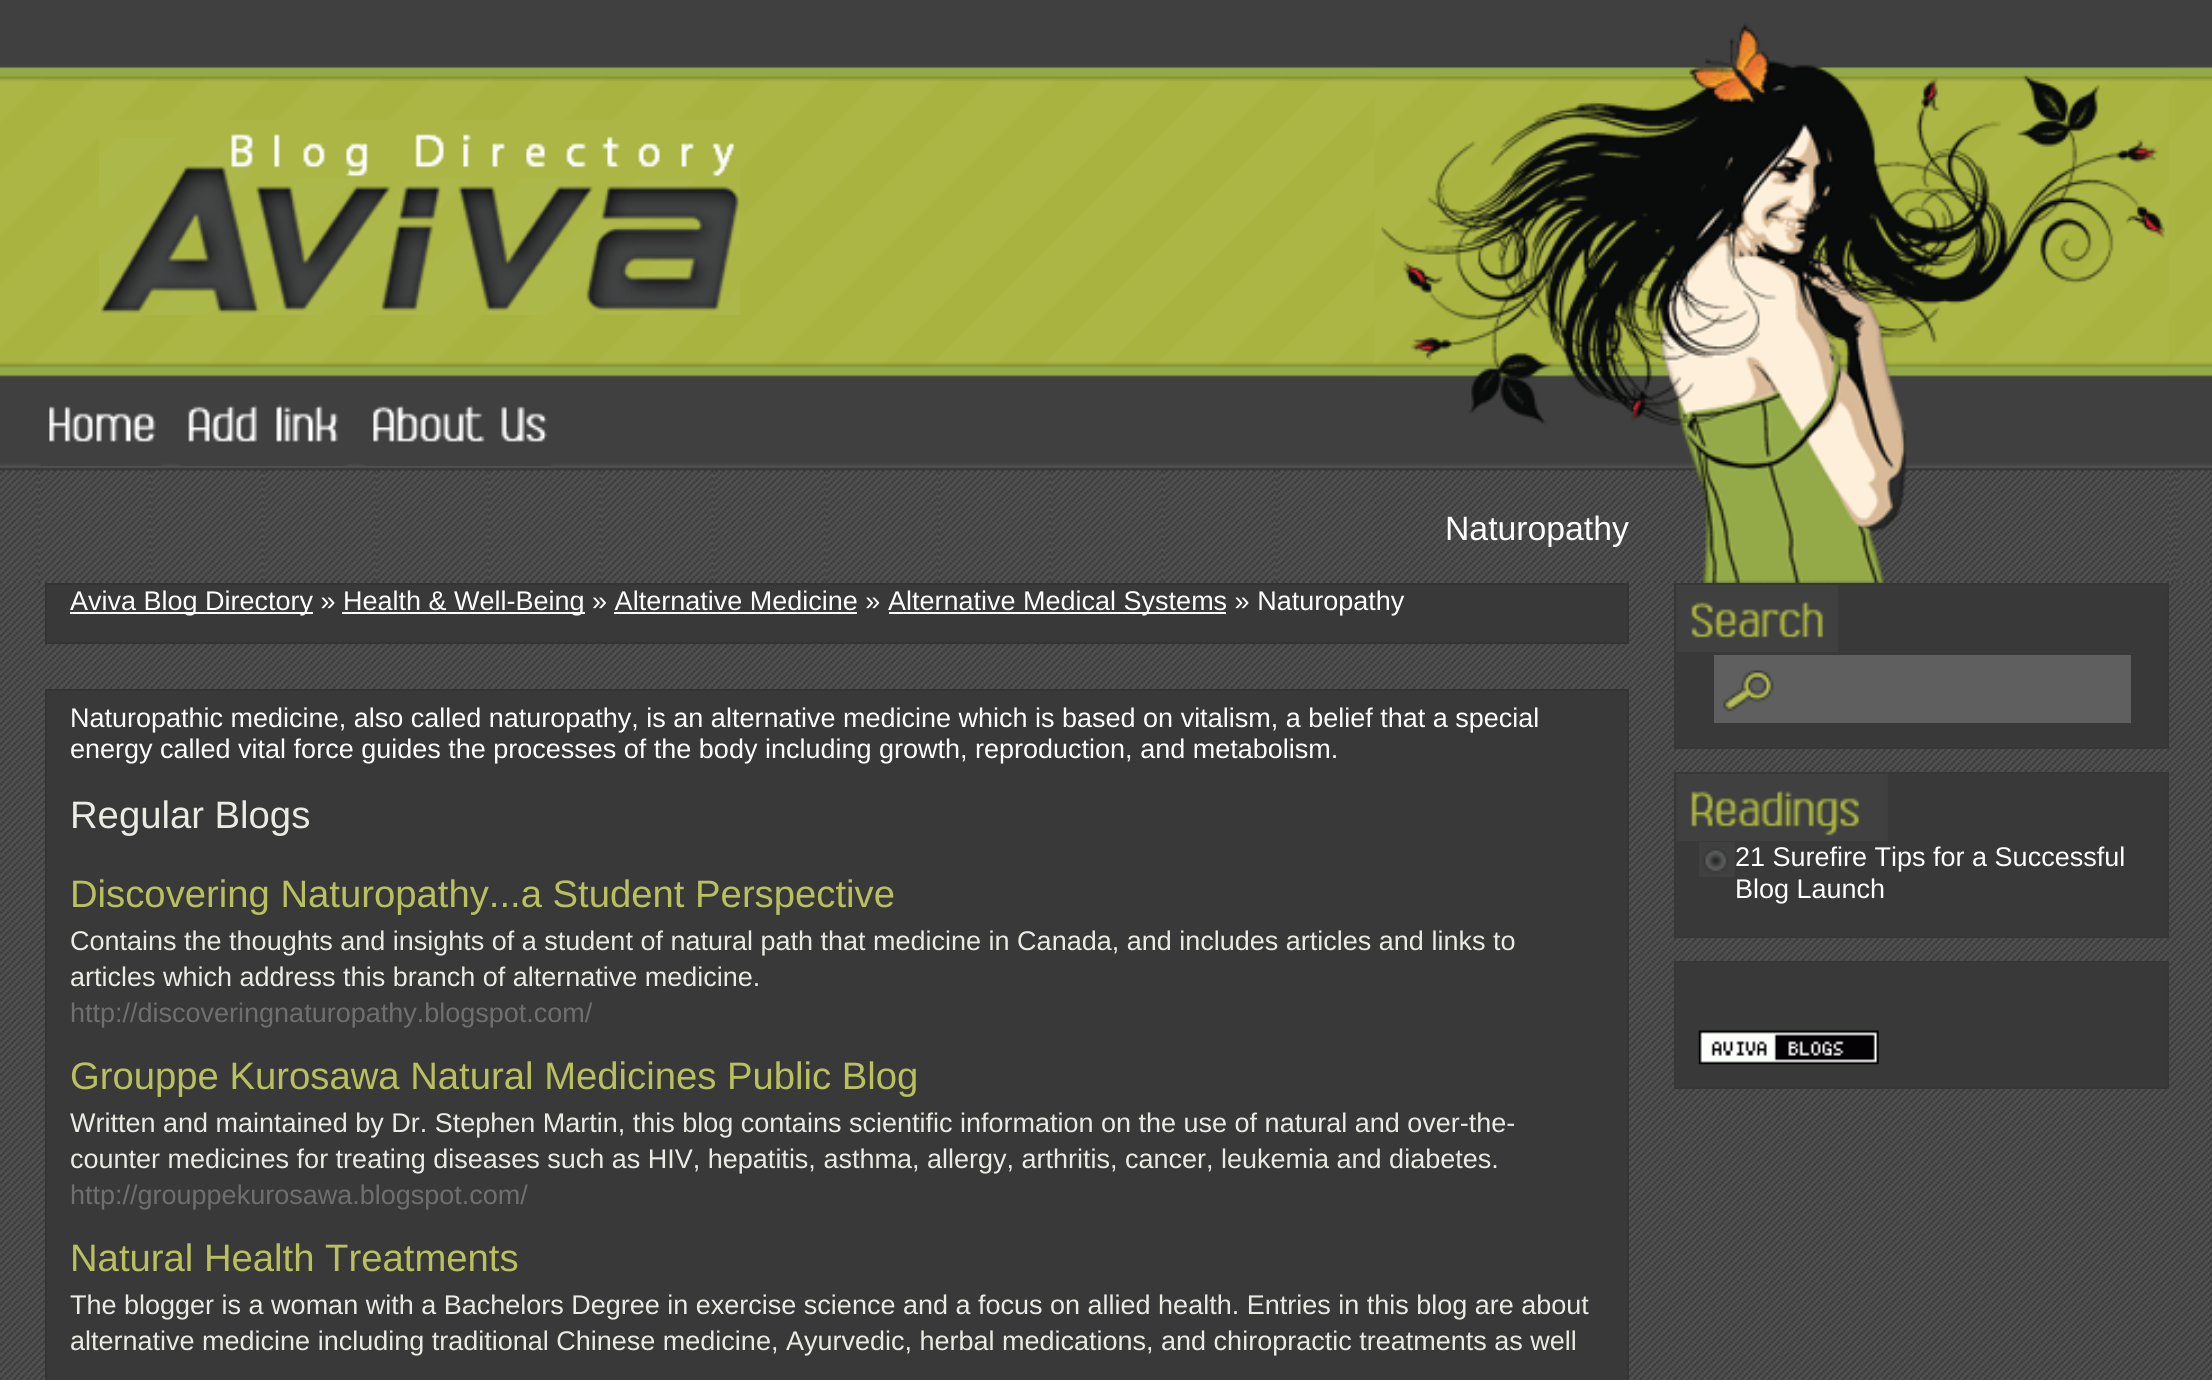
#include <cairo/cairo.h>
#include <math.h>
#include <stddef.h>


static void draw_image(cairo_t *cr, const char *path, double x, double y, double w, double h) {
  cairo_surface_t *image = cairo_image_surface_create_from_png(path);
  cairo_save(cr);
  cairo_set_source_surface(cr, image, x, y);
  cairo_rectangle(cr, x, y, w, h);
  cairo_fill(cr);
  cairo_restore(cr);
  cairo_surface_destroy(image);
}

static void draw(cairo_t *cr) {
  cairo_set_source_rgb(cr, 1, 1, 1);
  cairo_paint(cr);
  draw_image(cr, "images/1.png", 0, 582, 2212, 798);
  draw_image(cr, "images/2.png", 0, 0, 2212, 583);
  draw_image(cr, "images/3.png", 99, 120, 641, 195);
  draw_image(cr, "images/4.png", 1374, 23, 795, 560);
  draw_image(cr, "images/5.png", 40, 406, 122, 60);
  draw_image(cr, "images/6.png", 180, 404, 167, 62);
  draw_image(cr, "images/7.png", 364, 404, 187, 62);
  cairo_set_source_rgb(cr, 57 / 255.0, 57 / 255.0, 57 / 255.0);
  cairo_rectangle(cr, 46, 584, 1582, 59);
  cairo_fill_preserve(cr);
  cairo_set_source_rgb(cr, 52 / 255.0, 52 / 255.0, 52 / 255.0);
  cairo_stroke(cr);
  cairo_set_source_rgb(cr, 1, 1, 1);
  cairo_rectangle(cr, 70, 612, 243, 2);
  cairo_fill(cr);
  cairo_rectangle(cr, 342, 612, 243, 2);
  cairo_fill(cr);
  cairo_rectangle(cr, 889, 612, 337, 2);
  cairo_fill(cr);
  cairo_rectangle(cr, 614, 612, 243, 2);
  cairo_fill(cr);
  cairo_set_source_rgb(cr, 57 / 255.0, 57 / 255.0, 57 / 255.0);
  cairo_rectangle(cr, 46, 690, 1582, 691);
  cairo_fill_preserve(cr);
  cairo_set_source_rgb(cr, 52 / 255.0, 52 / 255.0, 52 / 255.0);
  cairo_stroke(cr);
  cairo_set_source_rgb(cr, 57 / 255.0, 57 / 255.0, 57 / 255.0);
  cairo_rectangle(cr, 1676, 585, 491, 162);
  cairo_fill(cr);
  draw_image(cr, "images/8.png", 1676, 585, 162, 67);
  cairo_rectangle(cr, 1675, 584, 493, 164);
  cairo_set_source_rgb(cr, 55 / 255.0, 55 / 255.0, 55 / 255.0);
  cairo_stroke(cr);
  cairo_set_source_rgb(cr, 95 / 255.0, 95 / 255.0, 95 / 255.0);
  cairo_rectangle(cr, 1714, 655, 417, 68);
  cairo_fill(cr);
  draw_image(cr, "images/9.png", 1723, 670, 51, 42);
  cairo_set_source_rgb(cr, 57 / 255.0, 57 / 255.0, 57 / 255.0);
  cairo_rectangle(cr, 1676, 774, 491, 162);
  cairo_fill(cr);
  draw_image(cr, "images/10.png", 1676, 774, 212, 67);
  cairo_rectangle(cr, 1675, 773, 493, 164);
  cairo_set_source_rgb(cr, 55 / 255.0, 55 / 255.0, 55 / 255.0);
  cairo_stroke(cr);
  draw_image(cr, "images/11.png", 1699, 842, 36, 35);
  cairo_set_source_rgb(cr, 57 / 255.0, 57 / 255.0, 57 / 255.0);
  cairo_rectangle(cr, 1675, 962, 493, 126);
  cairo_fill_preserve(cr);
  cairo_set_source_rgb(cr, 55 / 255.0, 55 / 255.0, 55 / 255.0);
  cairo_stroke(cr);
  draw_image(cr, "images/12.png", 1698, 1030, 181, 35);
  cairo_select_font_face(cr, "Liberation Sans", CAIRO_FONT_SLANT_NORMAL, CAIRO_FONT_WEIGHT_NORMAL);
  cairo_set_font_size(cr, 33.75);
  cairo_set_source_rgb(cr, 1, 1, 1);
  cairo_move_to(cr, 1445, 540);
  cairo_show_text(cr, "Naturopathy");
  cairo_set_font_size(cr, 27);
  cairo_move_to(cr, 70, 610);
  cairo_show_text(cr, "Aviva Blog Directory »");
  cairo_move_to(cr, 343, 610);
  cairo_show_text(cr, "Health & Well-Being » Alternative Medicine »");
  cairo_move_to(cr, 888, 610);
  cairo_show_text(cr, "Alternative Medical Systems » Naturopathy");
  cairo_move_to(cr, 70, 727);
  cairo_show_text(cr, "Naturopathic medicine, also called naturopathy, is an alternative medicine which is based on vitalism, a belief that a special");
  cairo_move_to(cr, 70, 758);
  cairo_show_text(cr, "energy called vital force guides the processes of the body including growth, reproduction, and metabolism.");
  cairo_set_font_size(cr, 38.25);
  cairo_set_source_rgb(cr, 235 / 255.0, 235 / 255.0, 230 / 255.0);
  cairo_move_to(cr, 70, 828);
  cairo_show_text(cr, "Regular Blogs");
  cairo_set_source_rgb(cr, 184 / 255.0, 193 / 255.0, 93 / 255.0);
  cairo_move_to(cr, 70, 907);
  cairo_show_text(cr, "Discovering Naturopathy...a Student Perspective");
  cairo_set_font_size(cr, 27);
  cairo_set_source_rgb(cr, 235 / 255.0, 235 / 255.0, 230 / 255.0);
  cairo_move_to(cr, 70, 950);
  cairo_show_text(cr, "Contains the thoughts and insights of a student of natural path that medicine in Canada, and includes articles and links to");
  cairo_move_to(cr, 70, 986);
  cairo_show_text(cr, "articles which address this branch of alternative medicine.");
  cairo_set_source_rgb(cr, 111 / 255.0, 111 / 255.0, 111 / 255.0);
  cairo_move_to(cr, 70, 1022);
  cairo_show_text(cr, "http://discoveringnaturopathy.blogspot.com/");
  cairo_set_font_size(cr, 38.25);
  cairo_set_source_rgb(cr, 184 / 255.0, 193 / 255.0, 93 / 255.0);
  cairo_move_to(cr, 70, 1089);
  cairo_show_text(cr, "Grouppe Kurosawa Natural Medicines Public Blog");
  cairo_set_font_size(cr, 27);
  cairo_set_source_rgb(cr, 235 / 255.0, 235 / 255.0, 230 / 255.0);
  cairo_move_to(cr, 70, 1132);
  cairo_show_text(cr, "Written and maintained by Dr. Stephen Martin, this blog contains scientific information on the use of natural and over-the-");
  cairo_move_to(cr, 70, 1168);
  cairo_show_text(cr, "counter medicines for treating diseases such as HIV, hepatitis, asthma, allergy, arthritis, cancer, leukemia and diabetes.");
  cairo_set_source_rgb(cr, 111 / 255.0, 111 / 255.0, 111 / 255.0);
  cairo_move_to(cr, 70, 1204);
  cairo_show_text(cr, "http://grouppekurosawa.blogspot.com/");
  cairo_set_font_size(cr, 38.25);
  cairo_set_source_rgb(cr, 184 / 255.0, 193 / 255.0, 93 / 255.0);
  cairo_move_to(cr, 70, 1271);
  cairo_show_text(cr, "Natural Health Treatments");
  cairo_set_font_size(cr, 27);
  cairo_set_source_rgb(cr, 235 / 255.0, 235 / 255.0, 230 / 255.0);
  cairo_move_to(cr, 70, 1314);
  cairo_show_text(cr, "The blogger is a woman with a Bachelors Degree in exercise science and a focus on allied health. Entries in this blog are about");
  cairo_move_to(cr, 70, 1350);
  cairo_show_text(cr, "alternative medicine including traditional Chinese medicine, Ayurvedic, herbal medications, and chiropractic treatments as well");
  cairo_set_source_rgb(cr, 1, 1, 1);
  cairo_move_to(cr, 1735, 866);
  cairo_show_text(cr, "21 Surefire Tips for a Successful");
  cairo_move_to(cr, 1735, 898);
  cairo_show_text(cr, "Blog Launch");
}

int main(void) {
  cairo_surface_t *surface = cairo_image_surface_create(CAIRO_FORMAT_RGB24, 2212, 1380);
  cairo_t *cr = cairo_create(surface);
  cairo_font_options_t *options = cairo_font_options_create();
  cairo_font_options_set_hint_metrics(options, CAIRO_HINT_METRICS_OFF);
  cairo_font_options_set_hint_style(options, CAIRO_HINT_STYLE_NONE);
  cairo_set_font_options(cr, options);
  cairo_set_miter_limit(cr, 4);
  draw(cr);
  cairo_surface_write_to_png(surface, "out.png");
  cairo_font_options_destroy(options);
  cairo_destroy(cr);
  cairo_surface_destroy(surface);
  return 0;
}
